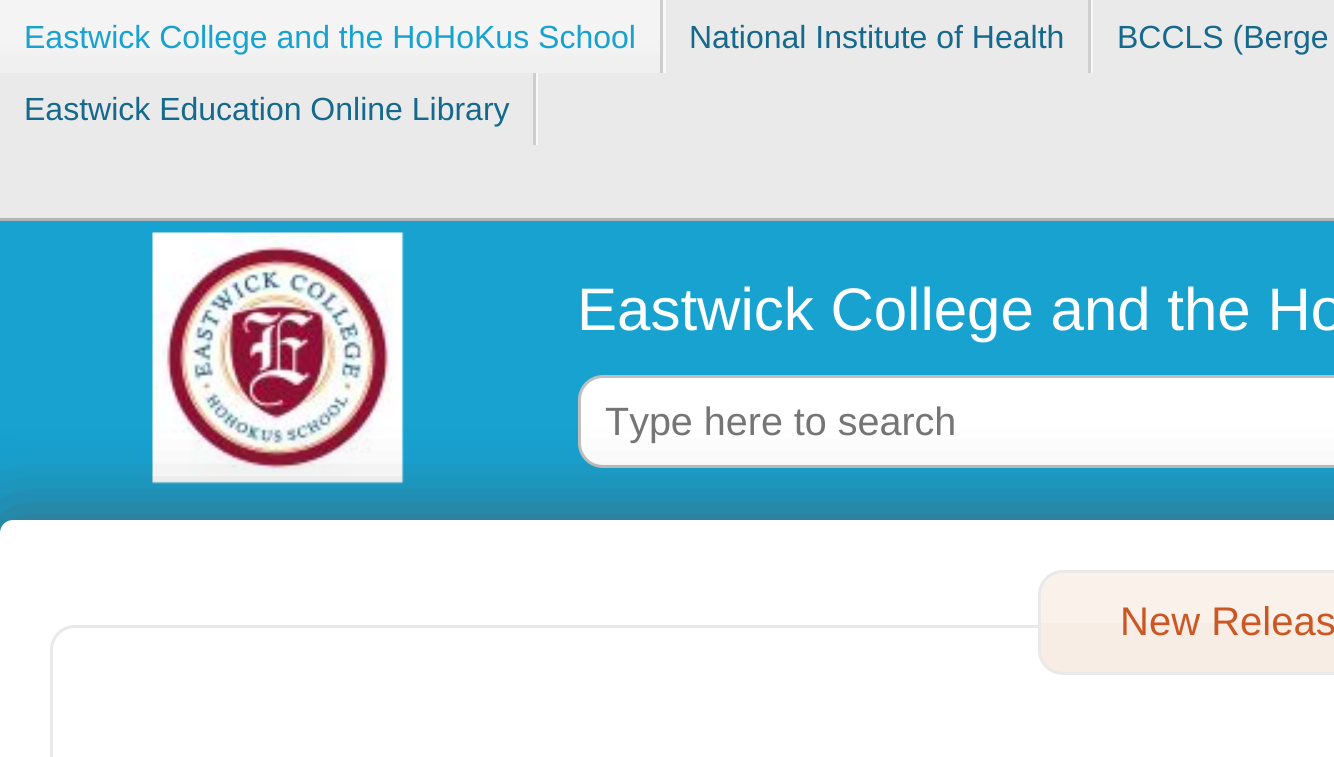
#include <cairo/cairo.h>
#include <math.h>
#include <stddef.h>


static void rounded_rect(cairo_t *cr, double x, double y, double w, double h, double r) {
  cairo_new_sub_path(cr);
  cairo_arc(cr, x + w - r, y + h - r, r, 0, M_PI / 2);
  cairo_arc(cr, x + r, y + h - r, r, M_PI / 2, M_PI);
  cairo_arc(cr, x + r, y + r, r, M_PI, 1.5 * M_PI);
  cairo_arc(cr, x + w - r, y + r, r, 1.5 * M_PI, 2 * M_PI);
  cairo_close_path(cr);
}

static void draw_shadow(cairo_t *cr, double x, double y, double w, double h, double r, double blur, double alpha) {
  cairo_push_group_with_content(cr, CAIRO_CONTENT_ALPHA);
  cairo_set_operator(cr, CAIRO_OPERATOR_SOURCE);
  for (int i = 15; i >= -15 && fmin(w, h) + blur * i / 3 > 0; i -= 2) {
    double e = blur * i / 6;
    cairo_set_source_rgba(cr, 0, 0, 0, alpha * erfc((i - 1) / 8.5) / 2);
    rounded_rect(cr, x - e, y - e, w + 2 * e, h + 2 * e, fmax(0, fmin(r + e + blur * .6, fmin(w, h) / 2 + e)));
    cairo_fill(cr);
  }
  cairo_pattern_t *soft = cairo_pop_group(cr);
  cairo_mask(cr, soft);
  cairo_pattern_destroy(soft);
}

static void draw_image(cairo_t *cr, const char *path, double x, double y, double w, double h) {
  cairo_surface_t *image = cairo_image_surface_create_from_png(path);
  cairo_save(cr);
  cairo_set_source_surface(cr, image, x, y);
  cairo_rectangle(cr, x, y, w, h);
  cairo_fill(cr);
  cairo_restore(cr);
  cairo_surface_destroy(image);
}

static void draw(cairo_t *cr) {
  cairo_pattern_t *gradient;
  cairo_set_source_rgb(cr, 234 / 255.0, 234 / 255.0, 234 / 255.0);
  cairo_paint(cr);
  cairo_set_source_rgb(cr, 248 / 255.0, 248 / 255.0, 248 / 255.0);
  cairo_rectangle(cr, 663, 0, 3, 73);
  cairo_fill(cr);
  gradient = cairo_pattern_create_linear(330, 0, 330, 73);
  cairo_pattern_add_color_stop_rgba(gradient, 0.6, 244 / 255.0, 244 / 255.0, 244 / 255.0, 1);
  cairo_pattern_add_color_stop_rgba(gradient, 0.8, 240 / 255.0, 240 / 255.0, 240 / 255.0, 1);
  cairo_set_source(cr, gradient);
  cairo_pattern_destroy(gradient);
  cairo_rectangle(cr, 0, 0, 660, 73);
  cairo_fill(cr);
  cairo_set_source_rgb(cr, 206 / 255.0, 206 / 255.0, 206 / 255.0);
  cairo_rectangle(cr, 660, 0, 3, 73);
  cairo_fill(cr);
  cairo_set_source_rgb(cr, 248 / 255.0, 248 / 255.0, 248 / 255.0);
  cairo_rectangle(cr, 1091, 0, 2, 73);
  cairo_fill(cr);
  cairo_set_source_rgb(cr, 206 / 255.0, 206 / 255.0, 206 / 255.0);
  cairo_rectangle(cr, 1088, 0, 3, 73);
  cairo_fill(cr);
  cairo_set_source_rgb(cr, 248 / 255.0, 248 / 255.0, 248 / 255.0);
  cairo_rectangle(cr, 536, 73, 2, 72);
  cairo_fill(cr);
  cairo_set_source_rgb(cr, 206 / 255.0, 206 / 255.0, 206 / 255.0);
  cairo_rectangle(cr, 533, 73, 3, 72);
  cairo_fill(cr);
  gradient = cairo_pattern_create_linear(1249, 220, 1249, 645);
  cairo_pattern_add_color_stop_rgba(gradient, 0.5, 23 / 255.0, 162 / 255.0, 208 / 255.0, 1);
  cairo_pattern_add_color_stop_rgba(gradient, 1, 21 / 255.0, 143 / 255.0, 184 / 255.0, 1);
  cairo_set_source(cr, gradient);
  cairo_pattern_destroy(gradient);
  cairo_rectangle(cr, 0, 221, 1334, 312);
  cairo_fill(cr);
  cairo_set_source_rgb(cr, 180 / 255.0, 180 / 255.0, 180 / 255.0);
  cairo_rectangle(cr, 0, 218, 1334, 3);
  cairo_fill(cr);
  draw_image(cr, "images/1.png", 152, 232, 252, 252);
  cairo_set_source_rgb(cr, 1, 1, 1);
  rounded_rect(cr, 579.5, 376.5, 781, 90, 23.5);
  cairo_fill_preserve(cr);
  cairo_set_source_rgb(cr, 191 / 255.0, 191 / 255.0, 191 / 255.0);
  cairo_set_line_width(cr, 3);
  cairo_stroke(cr);
  cairo_set_source_rgb(cr, 85 / 255.0, 85 / 255.0, 85 / 255.0);
  draw_shadow(cr, 0, 520, 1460, 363, 13, 37.5, 0.7);
  cairo_set_source_rgb(cr, 1, 1, 1);
  rounded_rect(cr, 0, 520, 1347, 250, 13);
  cairo_fill(cr);
  cairo_save(cr);
  rounded_rect(cr, 1038, 570, 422, 105, 25);
  cairo_clip(cr);
  cairo_set_source_rgb(cr, 251 / 255.0, 241 / 255.0, 235 / 255.0);
  cairo_rectangle(cr, 1038, 573, 296, 50);
  cairo_fill(cr);
  cairo_restore(cr);
  rounded_rect(cr, 51.5, 626.5, 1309, 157, 23.5);
  cairo_set_source_rgb(cr, 233 / 255.0, 233 / 255.0, 233 / 255.0);
  cairo_stroke(cr);
  cairo_save(cr);
  rounded_rect(cr, 1038, 570, 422, 105, 25);
  cairo_clip(cr);
  cairo_set_source_rgb(cr, 248 / 255.0, 237 / 255.0, 229 / 255.0);
  cairo_rectangle(cr, 1038, 623, 296, 50);
  cairo_fill(cr);
  cairo_restore(cr);
  rounded_rect(cr, 1039.5, 571.5, 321, 102, 23.5);
  cairo_stroke(cr);
  cairo_select_font_face(cr, "Liberation Sans", CAIRO_FONT_SLANT_NORMAL, CAIRO_FONT_WEIGHT_NORMAL);
  cairo_set_font_size(cr, 32);
  cairo_set_source_rgb(cr, 23 / 255.0, 162 / 255.0, 208 / 255.0);
  cairo_move_to(cr, 24, 48);
  cairo_show_text(cr, "Eastwick College and the HoHoKus School");
  cairo_set_source_rgb(cr, 21 / 255.0, 105 / 255.0, 140 / 255.0);
  cairo_move_to(cr, 689, 48);
  cairo_show_text(cr, "National Institute of Health");
  cairo_move_to(cr, 1117, 48);
  cairo_show_text(cr, "BCCLS (Berge");
  cairo_move_to(cr, 24, 120);
  cairo_show_text(cr, "Eastwick Education Online Library");
  cairo_set_font_size(cr, 60);
  cairo_set_source_rgb(cr, 1, 1, 1);
  cairo_move_to(cr, 577, 330);
  cairo_show_text(cr, "Eastwick College and the Ho");
  cairo_set_font_size(cr, 39.5);
  cairo_set_source_rgb(cr, 117 / 255.0, 117 / 255.0, 117 / 255.0);
  cairo_move_to(cr, 605, 435);
  cairo_show_text(cr, "Type here to search");
  cairo_set_font_size(cr, 40);
  cairo_set_source_rgb(cr, 204 / 255.0, 87 / 255.0, 35 / 255.0);
  cairo_move_to(cr, 1120, 635);
  cairo_show_text(cr, "New Releas");
}

int main(void) {
  cairo_surface_t *surface = cairo_image_surface_create(CAIRO_FORMAT_RGB24, 1334, 757);
  cairo_t *cr = cairo_create(surface);
  cairo_font_options_t *options = cairo_font_options_create();
  cairo_font_options_set_hint_metrics(options, CAIRO_HINT_METRICS_OFF);
  cairo_font_options_set_hint_style(options, CAIRO_HINT_STYLE_NONE);
  cairo_set_font_options(cr, options);
  cairo_set_miter_limit(cr, 4);
  draw(cr);
  cairo_surface_write_to_png(surface, "out.png");
  cairo_font_options_destroy(options);
  cairo_destroy(cr);
  cairo_surface_destroy(surface);
  return 0;
}
